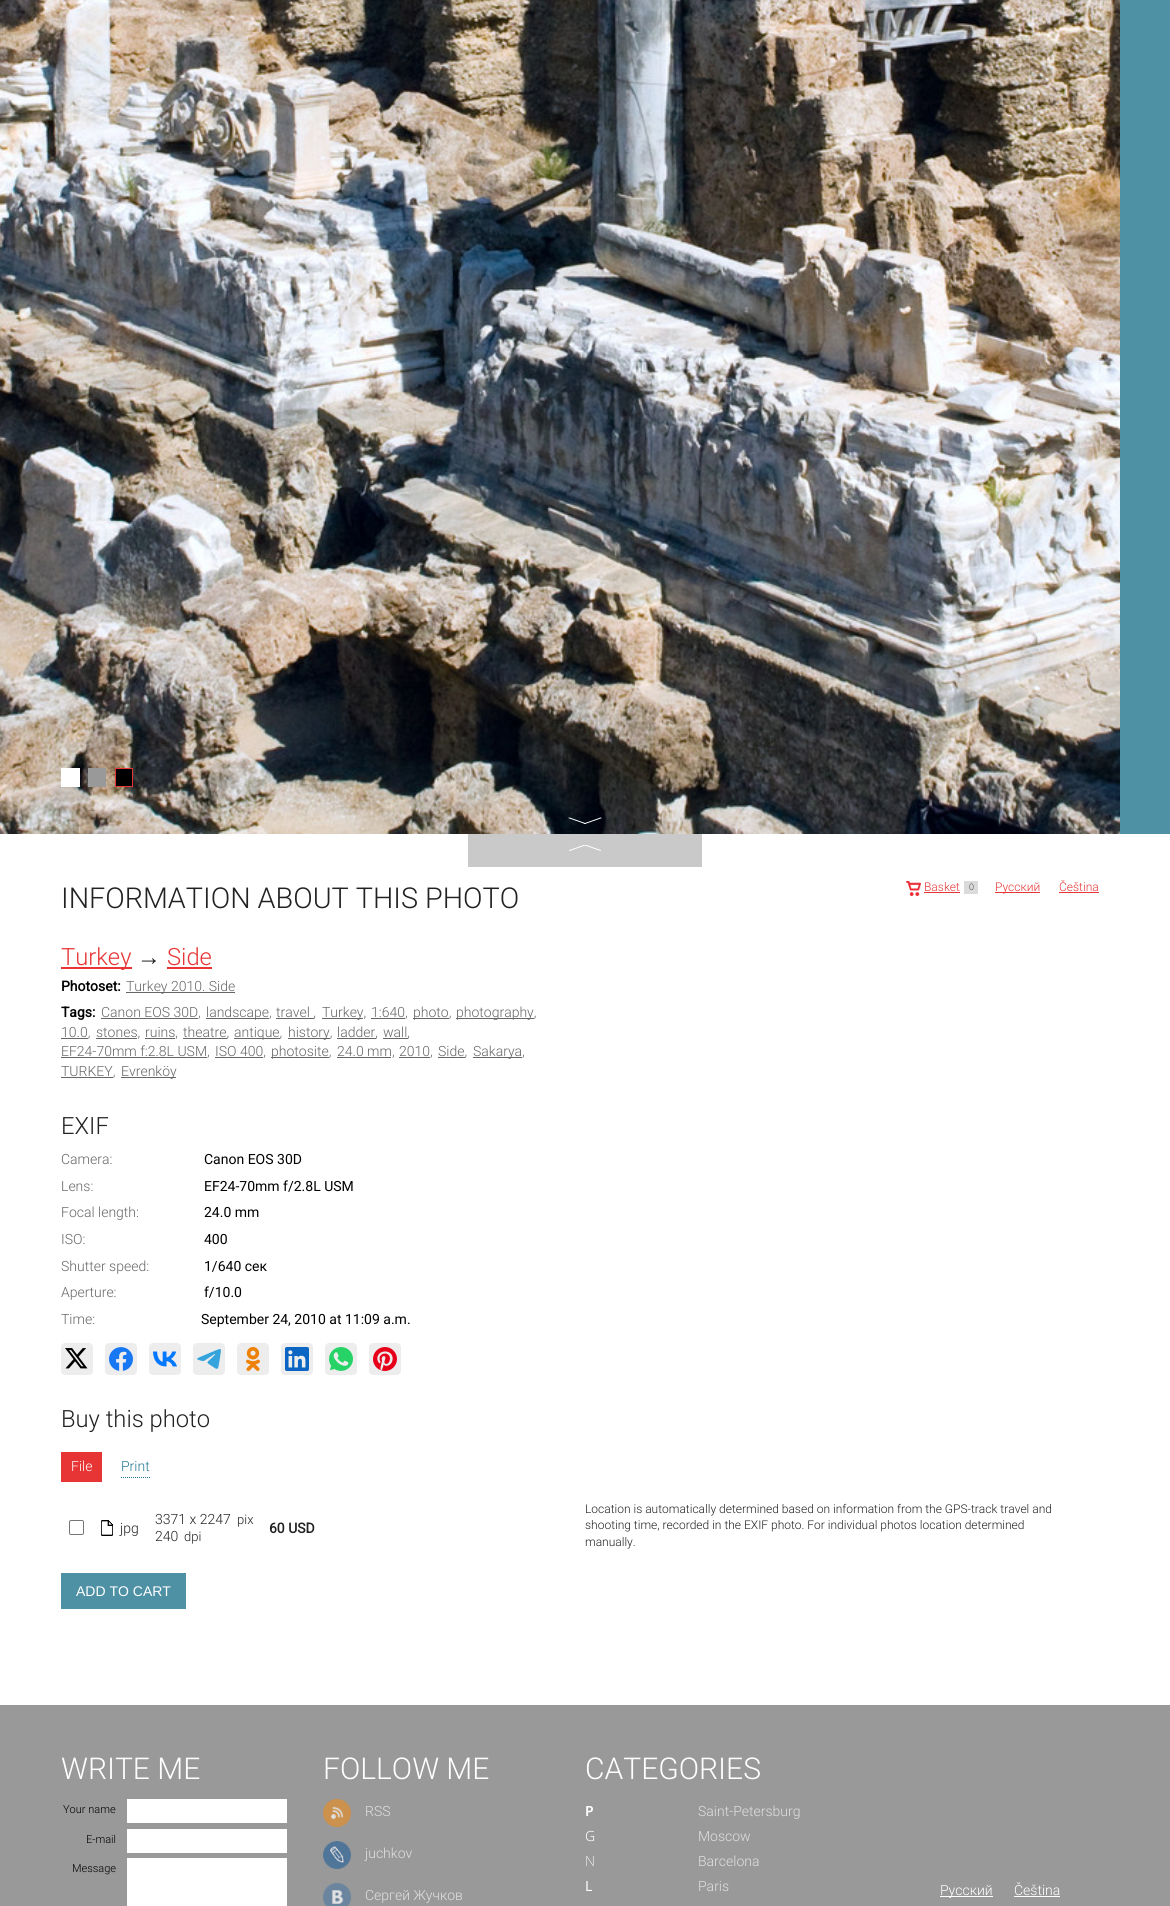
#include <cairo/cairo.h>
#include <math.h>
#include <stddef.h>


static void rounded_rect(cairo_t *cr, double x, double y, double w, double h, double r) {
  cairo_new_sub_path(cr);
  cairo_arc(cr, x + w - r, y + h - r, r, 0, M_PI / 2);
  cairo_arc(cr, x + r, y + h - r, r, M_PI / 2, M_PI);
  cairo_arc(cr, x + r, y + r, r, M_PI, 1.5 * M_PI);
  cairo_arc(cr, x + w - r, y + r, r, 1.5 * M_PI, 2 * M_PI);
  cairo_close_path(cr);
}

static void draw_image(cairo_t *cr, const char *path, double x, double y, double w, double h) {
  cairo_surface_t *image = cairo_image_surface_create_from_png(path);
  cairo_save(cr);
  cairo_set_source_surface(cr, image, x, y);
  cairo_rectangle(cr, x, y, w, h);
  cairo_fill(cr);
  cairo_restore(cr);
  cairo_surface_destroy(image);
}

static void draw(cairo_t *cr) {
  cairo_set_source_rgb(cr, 1, 1, 1);
  cairo_paint(cr);
  draw_image(cr, "images/1.png", 0, 0, 1120, 834);
  cairo_set_source_rgb(cr, 1, 1, 1);
  cairo_rectangle(cr, 61, 768, 19, 19);
  cairo_fill(cr);
  cairo_set_source_rgb(cr, 153 / 255.0, 153 / 255.0, 153 / 255.0);
  cairo_rectangle(cr, 88, 768, 18, 19);
  cairo_fill(cr);
  cairo_set_source_rgb(cr, 0, 0, 0);
  cairo_rectangle(cr, 115.5, 768.5, 17, 18);
  cairo_fill_preserve(cr);
  cairo_set_source_rgb(cr, 231 / 255.0, 52 / 255.0, 52 / 255.0);
  cairo_set_line_width(cr, 1);
  cairo_stroke(cr);
  cairo_set_source_rgb(cr, 78 / 255.0, 145 / 255.0, 165 / 255.0);
  cairo_rectangle(cr, 1120, 0, 50, 834);
  cairo_fill(cr);
  cairo_set_source_rgb(cr, 1, 1, 1);
  cairo_new_path(cr);
  cairo_move_to(cr, 600.5, 817.5);
  cairo_line_to(cr, 602, 818);
  cairo_line_to(cr, 585, 824);
  cairo_line_to(cr, 583.5, 823.5);
  cairo_close_path(cr);
  cairo_fill(cr);
  cairo_new_path(cr);
  cairo_move_to(cr, 569.5, 817.5);
  cairo_line_to(cr, 586.5, 823.5);
  cairo_line_to(cr, 585, 824);
  cairo_line_to(cr, 568, 818);
  cairo_close_path(cr);
  cairo_fill(cr);
  cairo_set_source_rgb(cr, 201 / 255.0, 201 / 255.0, 201 / 255.0);
  cairo_rectangle(cr, 468, 834, 234, 33);
  cairo_fill(cr);
  cairo_save(cr);
  cairo_rectangle(cr, 569, 845, 32, 11);
  cairo_clip(cr);
  cairo_set_source_rgb(cr, 1, 1, 1);
  cairo_new_path(cr);
  cairo_move_to(cr, 569.5, 851);
  cairo_line_to(cr, 568, 850.5);
  cairo_line_to(cr, 585, 844.5);
  cairo_line_to(cr, 586.5, 845);
  cairo_close_path(cr);
  cairo_fill(cr);
  cairo_new_path(cr);
  cairo_move_to(cr, 600.5, 851);
  cairo_line_to(cr, 583.5, 845);
  cairo_line_to(cr, 585, 844.5);
  cairo_line_to(cr, 602, 850.5);
  cairo_close_path(cr);
  cairo_fill(cr);
  cairo_restore(cr);
  cairo_set_source_rgb(cr, 231 / 255.0, 52 / 255.0, 52 / 255.0);
  cairo_rectangle(cr, 61, 967, 71, 2);
  cairo_fill(cr);
  cairo_rectangle(cr, 167, 967, 45, 2);
  cairo_fill(cr);
  cairo_set_source_rgb(cr, 102 / 255.0, 102 / 255.0, 102 / 255.0);
  cairo_rectangle(cr, 126, 992, 109, 1);
  cairo_fill(cr);
  cairo_rectangle(cr, 101, 1018, 97, 1);
  cairo_fill(cr);
  cairo_rectangle(cr, 206, 1018, 63, 1);
  cairo_fill(cr);
  cairo_rectangle(cr, 276, 1018, 38, 1);
  cairo_fill(cr);
  cairo_rectangle(cr, 322, 1018, 41, 1);
  cairo_fill(cr);
  cairo_rectangle(cr, 371, 1018, 34, 1);
  cairo_fill(cr);
  cairo_rectangle(cr, 413, 1018, 36, 1);
  cairo_fill(cr);
  cairo_rectangle(cr, 456, 1018, 78, 1);
  cairo_fill(cr);
  cairo_rectangle(cr, 61, 1038, 27, 1);
  cairo_fill(cr);
  cairo_rectangle(cr, 96, 1038, 41, 1);
  cairo_fill(cr);
  cairo_rectangle(cr, 145, 1038, 30, 1);
  cairo_fill(cr);
  cairo_rectangle(cr, 183, 1038, 44, 1);
  cairo_fill(cr);
  cairo_rectangle(cr, 234, 1038, 46, 1);
  cairo_fill(cr);
  cairo_rectangle(cr, 288, 1038, 42, 1);
  cairo_fill(cr);
  cairo_rectangle(cr, 337, 1038, 39, 1);
  cairo_fill(cr);
  cairo_rectangle(cr, 383, 1038, 25, 1);
  cairo_fill(cr);
  cairo_rectangle(cr, 61, 1057, 146, 1);
  cairo_fill(cr);
  cairo_rectangle(cr, 215, 1057, 48, 1);
  cairo_fill(cr);
  cairo_rectangle(cr, 271, 1057, 58, 1);
  cairo_fill(cr);
  cairo_rectangle(cr, 337, 1057, 54, 1);
  cairo_fill(cr);
  cairo_rectangle(cr, 399, 1057, 31, 1);
  cairo_fill(cr);
  cairo_rectangle(cr, 438, 1057, 27, 1);
  cairo_fill(cr);
  cairo_rectangle(cr, 473, 1057, 49, 1);
  cairo_fill(cr);
  cairo_rectangle(cr, 61, 1077, 52, 1);
  cairo_fill(cr);
  cairo_rectangle(cr, 121, 1077, 55, 1);
  cairo_fill(cr);
  cairo_set_source_rgb(cr, 237 / 255.0, 237 / 255.0, 237 / 255.0);
  rounded_rect(cr, 61, 1343, 32, 32, 4);
  cairo_fill(cr);
  draw_image(cr, "images/2.png", 65, 1348, 23, 21);
  rounded_rect(cr, 105, 1343, 32, 32, 4);
  cairo_fill(cr);
  draw_image(cr, "images/3.png", 109, 1347, 24, 24);
  rounded_rect(cr, 149, 1343, 32, 32, 4);
  cairo_fill(cr);
  draw_image(cr, "images/4.png", 153, 1351, 24, 16);
  rounded_rect(cr, 193, 1343, 32, 32, 4);
  cairo_fill(cr);
  draw_image(cr, "images/5.png", 197, 1349, 24, 20);
  rounded_rect(cr, 237, 1343, 32, 32, 4);
  cairo_fill(cr);
  draw_image(cr, "images/6.png", 246, 1347, 14, 24);
  rounded_rect(cr, 281, 1343, 32, 32, 4);
  cairo_fill(cr);
  draw_image(cr, "images/7.png", 285, 1347, 24, 24);
  rounded_rect(cr, 325, 1343, 32, 32, 4);
  cairo_fill(cr);
  draw_image(cr, "images/8.png", 329, 1347, 24, 24);
  rounded_rect(cr, 369, 1343, 32, 32, 4);
  cairo_fill(cr);
  draw_image(cr, "images/9.png", 373, 1347, 24, 24);
  cairo_set_source_rgb(cr, 231 / 255.0, 52 / 255.0, 52 / 255.0);
  cairo_rectangle(cr, 61, 1452, 41, 30);
  cairo_fill(cr);
  cairo_new_path(cr);
  cairo_move_to(cr, 121, 1477.5);
  cairo_line_to(cr, 150, 1477.5);
  cairo_set_source_rgb(cr, 38 / 255.0, 119 / 255.0, 147 / 255.0);
  cairo_set_dash(cr, (double[]){1, 1}, 2, 0);
  cairo_stroke(cr);
  rounded_rect(cr, 69.5, 1520.5, 14, 14, 1.5);
  cairo_set_source_rgb(cr, 118 / 255.0, 118 / 255.0, 118 / 255.0);
  cairo_set_dash(cr, NULL, 0, 0);
  cairo_stroke(cr);
  draw_image(cr, "images/10.png", 101, 1520, 12, 16);
  cairo_set_source_rgb(cr, 78 / 255.0, 145 / 255.0, 165 / 255.0);
  cairo_rectangle(cr, 61, 1573, 125, 36);
  cairo_fill(cr);
  draw_image(cr, "images/11.png", 906, 881, 15, 15);
  cairo_set_source_rgb(cr, 231 / 255.0, 52 / 255.0, 52 / 255.0);
  cairo_rectangle(cr, 924, 892, 36, 1);
  cairo_fill(cr);
  cairo_set_source_rgb(cr, 219 / 255.0, 219 / 255.0, 219 / 255.0);
  cairo_rectangle(cr, 964, 881, 14, 13);
  cairo_fill(cr);
  cairo_set_source_rgb(cr, 231 / 255.0, 52 / 255.0, 52 / 255.0);
  cairo_rectangle(cr, 995, 892, 45, 1);
  cairo_fill(cr);
  cairo_rectangle(cr, 1059, 892, 40, 1);
  cairo_fill(cr);
  cairo_set_source_rgb(cr, 153 / 255.0, 153 / 255.0, 153 / 255.0);
  cairo_rectangle(cr, 0, 1705, 1170, 201);
  cairo_fill(cr);
  cairo_set_source_rgb(cr, 1, 1, 1);
  cairo_rectangle(cr, 127, 1799, 160, 24);
  cairo_fill(cr);
  cairo_rectangle(cr, 127, 1829, 160, 24);
  cairo_fill(cr);
  cairo_rectangle(cr, 127, 1858, 160, 48);
  cairo_fill(cr);
  draw_image(cr, "images/12.png", 323, 1799, 28, 28);
  draw_image(cr, "images/13.png", 323, 1841, 28, 28);
  draw_image(cr, "images/14.png", 323, 1883, 28, 23);
  cairo_rectangle(cr, 940, 1896, 53, 1);
  cairo_fill(cr);
  cairo_rectangle(cr, 1014, 1896, 46, 1);
  cairo_fill(cr);
  cairo_select_font_face(cr, "Roboto Light", CAIRO_FONT_SLANT_NORMAL, CAIRO_FONT_WEIGHT_NORMAL);
  cairo_set_font_size(cr, 28.75);
  cairo_set_source_rgb(cr, 34 / 255.0, 34 / 255.0, 34 / 255.0);
  cairo_move_to(cr, 61, 908);
  cairo_show_text(cr, "INFORMATION ABOUT THIS PHOTO");
  cairo_set_font_size(cr, 23.75);
  cairo_set_source_rgb(cr, 231 / 255.0, 52 / 255.0, 52 / 255.0);
  cairo_move_to(cr, 61, 965);
  cairo_show_text(cr, "Turkey");
  cairo_select_font_face(cr, "Liberation Sans", CAIRO_FONT_SLANT_NORMAL, CAIRO_FONT_WEIGHT_NORMAL);
  cairo_set_source_rgb(cr, 34 / 255.0, 34 / 255.0, 34 / 255.0);
  cairo_move_to(cr, 137, 965);
  cairo_show_text(cr, "→");
  cairo_select_font_face(cr, "Roboto Light", CAIRO_FONT_SLANT_NORMAL, CAIRO_FONT_WEIGHT_NORMAL);
  cairo_set_source_rgb(cr, 231 / 255.0, 52 / 255.0, 52 / 255.0);
  cairo_move_to(cr, 167, 965);
  cairo_show_text(cr, "Side");
  cairo_select_font_face(cr, "Roboto", CAIRO_FONT_SLANT_NORMAL, CAIRO_FONT_WEIGHT_BOLD);
  cairo_set_font_size(cr, 14);
  cairo_set_source_rgb(cr, 0, 0, 0);
  cairo_move_to(cr, 61, 991);
  cairo_show_text(cr, "Photoset:");
  cairo_select_font_face(cr, "Roboto Light", CAIRO_FONT_SLANT_NORMAL, CAIRO_FONT_WEIGHT_NORMAL);
  cairo_set_source_rgb(cr, 102 / 255.0, 102 / 255.0, 102 / 255.0);
  cairo_move_to(cr, 126, 991);
  cairo_show_text(cr, "Turkey 2010. Side");
  cairo_select_font_face(cr, "Roboto", CAIRO_FONT_SLANT_NORMAL, CAIRO_FONT_WEIGHT_BOLD);
  cairo_set_source_rgb(cr, 0, 0, 0);
  cairo_move_to(cr, 61, 1017);
  cairo_show_text(cr, "Tags:");
  cairo_select_font_face(cr, "Roboto Light", CAIRO_FONT_SLANT_NORMAL, CAIRO_FONT_WEIGHT_NORMAL);
  cairo_set_source_rgb(cr, 102 / 255.0, 102 / 255.0, 102 / 255.0);
  cairo_move_to(cr, 101, 1017);
  cairo_show_text(cr, "Canon EOS 30D,");
  cairo_move_to(cr, 206, 1017);
  cairo_show_text(cr, "landscape,");
  cairo_move_to(cr, 276, 1017);
  cairo_show_text(cr, "travel ,");
  cairo_move_to(cr, 322, 1017);
  cairo_show_text(cr, "Turkey,");
  cairo_move_to(cr, 371, 1017);
  cairo_show_text(cr, "1:640,");
  cairo_move_to(cr, 413, 1017);
  cairo_show_text(cr, "photo,");
  cairo_move_to(cr, 456, 1017);
  cairo_show_text(cr, "photography,");
  cairo_move_to(cr, 61, 1037);
  cairo_show_text(cr, "10.0,");
  cairo_move_to(cr, 96, 1037);
  cairo_show_text(cr, "stones,");
  cairo_move_to(cr, 145, 1037);
  cairo_show_text(cr, "ruins,");
  cairo_move_to(cr, 183, 1037);
  cairo_show_text(cr, "theatre,");
  cairo_move_to(cr, 234, 1037);
  cairo_show_text(cr, "antique,");
  cairo_move_to(cr, 288, 1037);
  cairo_show_text(cr, "history,");
  cairo_move_to(cr, 337, 1037);
  cairo_show_text(cr, "ladder,");
  cairo_move_to(cr, 383, 1037);
  cairo_show_text(cr, "wall,");
  cairo_move_to(cr, 61, 1056);
  cairo_show_text(cr, "EF24-70mm f:2.8L USM,");
  cairo_move_to(cr, 215, 1056);
  cairo_show_text(cr, "ISO 400,");
  cairo_move_to(cr, 271, 1056);
  cairo_show_text(cr, "photosite,");
  cairo_move_to(cr, 337, 1056);
  cairo_show_text(cr, "24.0 mm,");
  cairo_move_to(cr, 399, 1056);
  cairo_show_text(cr, "2010,");
  cairo_move_to(cr, 438, 1056);
  cairo_show_text(cr, "Side,");
  cairo_move_to(cr, 473, 1056);
  cairo_show_text(cr, "Sakarya,");
  cairo_move_to(cr, 61, 1076);
  cairo_show_text(cr, "TURKEY,");
  cairo_move_to(cr, 121, 1076);
  cairo_show_text(cr, "Evrenköy");
  cairo_set_font_size(cr, 23.75);
  cairo_set_source_rgb(cr, 34 / 255.0, 34 / 255.0, 34 / 255.0);
  cairo_move_to(cr, 61, 1134);
  cairo_show_text(cr, "EXIF");
  cairo_set_font_size(cr, 14);
  cairo_set_source_rgb(cr, 102 / 255.0, 102 / 255.0, 102 / 255.0);
  cairo_move_to(cr, 61, 1164);
  cairo_show_text(cr, "Camera:");
  cairo_select_font_face(cr, "Roboto", CAIRO_FONT_SLANT_NORMAL, CAIRO_FONT_WEIGHT_NORMAL);
  cairo_set_source_rgb(cr, 0, 0, 0);
  cairo_move_to(cr, 204, 1164);
  cairo_show_text(cr, "Canon EOS 30D");
  cairo_select_font_face(cr, "Roboto Light", CAIRO_FONT_SLANT_NORMAL, CAIRO_FONT_WEIGHT_NORMAL);
  cairo_set_source_rgb(cr, 102 / 255.0, 102 / 255.0, 102 / 255.0);
  cairo_move_to(cr, 61, 1191);
  cairo_show_text(cr, "Lens:");
  cairo_select_font_face(cr, "Roboto", CAIRO_FONT_SLANT_NORMAL, CAIRO_FONT_WEIGHT_NORMAL);
  cairo_set_source_rgb(cr, 0, 0, 0);
  cairo_move_to(cr, 204, 1191);
  cairo_show_text(cr, "EF24-70mm f/2.8L USM");
  cairo_select_font_face(cr, "Roboto Light", CAIRO_FONT_SLANT_NORMAL, CAIRO_FONT_WEIGHT_NORMAL);
  cairo_set_source_rgb(cr, 102 / 255.0, 102 / 255.0, 102 / 255.0);
  cairo_move_to(cr, 61, 1217);
  cairo_show_text(cr, "Focal length:");
  cairo_select_font_face(cr, "Roboto", CAIRO_FONT_SLANT_NORMAL, CAIRO_FONT_WEIGHT_NORMAL);
  cairo_set_source_rgb(cr, 0, 0, 0);
  cairo_move_to(cr, 204, 1217);
  cairo_show_text(cr, "24.0 mm");
  cairo_select_font_face(cr, "Roboto Light", CAIRO_FONT_SLANT_NORMAL, CAIRO_FONT_WEIGHT_NORMAL);
  cairo_set_source_rgb(cr, 102 / 255.0, 102 / 255.0, 102 / 255.0);
  cairo_move_to(cr, 61, 1244);
  cairo_show_text(cr, "ISO:");
  cairo_select_font_face(cr, "Roboto", CAIRO_FONT_SLANT_NORMAL, CAIRO_FONT_WEIGHT_NORMAL);
  cairo_set_source_rgb(cr, 0, 0, 0);
  cairo_move_to(cr, 204, 1244);
  cairo_show_text(cr, "400");
  cairo_select_font_face(cr, "Roboto Light", CAIRO_FONT_SLANT_NORMAL, CAIRO_FONT_WEIGHT_NORMAL);
  cairo_set_source_rgb(cr, 102 / 255.0, 102 / 255.0, 102 / 255.0);
  cairo_move_to(cr, 61, 1271);
  cairo_show_text(cr, "Shutter speed:");
  cairo_select_font_face(cr, "Roboto", CAIRO_FONT_SLANT_NORMAL, CAIRO_FONT_WEIGHT_NORMAL);
  cairo_set_source_rgb(cr, 0, 0, 0);
  cairo_move_to(cr, 204, 1271);
  cairo_show_text(cr, "1/640 сек");
  cairo_select_font_face(cr, "Roboto Light", CAIRO_FONT_SLANT_NORMAL, CAIRO_FONT_WEIGHT_NORMAL);
  cairo_set_source_rgb(cr, 102 / 255.0, 102 / 255.0, 102 / 255.0);
  cairo_move_to(cr, 61, 1297);
  cairo_show_text(cr, "Aperture:");
  cairo_select_font_face(cr, "Roboto", CAIRO_FONT_SLANT_NORMAL, CAIRO_FONT_WEIGHT_NORMAL);
  cairo_set_source_rgb(cr, 0, 0, 0);
  cairo_move_to(cr, 204, 1297);
  cairo_show_text(cr, "f/10.0");
  cairo_select_font_face(cr, "Roboto Light", CAIRO_FONT_SLANT_NORMAL, CAIRO_FONT_WEIGHT_NORMAL);
  cairo_set_source_rgb(cr, 102 / 255.0, 102 / 255.0, 102 / 255.0);
  cairo_move_to(cr, 61, 1324);
  cairo_show_text(cr, "Time:");
  cairo_select_font_face(cr, "Roboto", CAIRO_FONT_SLANT_NORMAL, CAIRO_FONT_WEIGHT_NORMAL);
  cairo_set_source_rgb(cr, 0, 0, 0);
  cairo_move_to(cr, 201, 1324);
  cairo_show_text(cr, "September 24, 2010 at 11:09 a.m.");
  cairo_select_font_face(cr, "Roboto Light", CAIRO_FONT_SLANT_NORMAL, CAIRO_FONT_WEIGHT_NORMAL);
  cairo_set_font_size(cr, 23.75);
  cairo_set_source_rgb(cr, 34 / 255.0, 34 / 255.0, 34 / 255.0);
  cairo_move_to(cr, 61, 1427);
  cairo_show_text(cr, "Buy this photo");
  cairo_set_font_size(cr, 14);
  cairo_set_source_rgb(cr, 1, 1, 1);
  cairo_move_to(cr, 71, 1471);
  cairo_show_text(cr, "File");
  cairo_set_source_rgb(cr, 38 / 255.0, 119 / 255.0, 147 / 255.0);
  cairo_move_to(cr, 121, 1471);
  cairo_show_text(cr, "Print");
  cairo_set_source_rgb(cr, 34 / 255.0, 34 / 255.0, 34 / 255.0);
  cairo_move_to(cr, 120, 1533);
  cairo_show_text(cr, "jpg");
  cairo_move_to(cr, 155, 1524);
  cairo_show_text(cr, "3371 x 2247");
  cairo_set_font_size(cr, 13);
  cairo_move_to(cr, 237, 1524);
  cairo_show_text(cr, "pix");
  cairo_set_font_size(cr, 14);
  cairo_move_to(cr, 155, 1541);
  cairo_show_text(cr, "240");
  cairo_set_font_size(cr, 13);
  cairo_move_to(cr, 184, 1541);
  cairo_show_text(cr, "dpi");
  cairo_select_font_face(cr, "Roboto", CAIRO_FONT_SLANT_NORMAL, CAIRO_FONT_WEIGHT_BOLD);
  cairo_set_font_size(cr, 14);
  cairo_move_to(cr, 269, 1533);
  cairo_show_text(cr, "60 USD");
  cairo_select_font_face(cr, "Liberation Sans", CAIRO_FONT_SLANT_NORMAL, CAIRO_FONT_WEIGHT_NORMAL);
  cairo_set_source_rgb(cr, 1, 1, 1);
  cairo_move_to(cr, 76, 1596);
  cairo_show_text(cr, "ADD TO CART");
  cairo_select_font_face(cr, "Roboto Light", CAIRO_FONT_SLANT_NORMAL, CAIRO_FONT_WEIGHT_NORMAL);
  cairo_set_font_size(cr, 12);
  cairo_set_source_rgb(cr, 231 / 255.0, 52 / 255.0, 52 / 255.0);
  cairo_move_to(cr, 924, 891);
  cairo_show_text(cr, "Basket");
  cairo_set_font_size(cr, 9);
  cairo_set_source_rgb(cr, 77 / 255.0, 77 / 255.0, 77 / 255.0);
  cairo_move_to(cr, 969, 890);
  cairo_show_text(cr, "0");
  cairo_set_font_size(cr, 12);
  cairo_set_source_rgb(cr, 231 / 255.0, 52 / 255.0, 52 / 255.0);
  cairo_move_to(cr, 995, 891);
  cairo_show_text(cr, "Русский");
  cairo_move_to(cr, 1059, 891);
  cairo_show_text(cr, "Čeština");
  cairo_set_source_rgb(cr, 34 / 255.0, 34 / 255.0, 34 / 255.0);
  cairo_move_to(cr, 585, 1513);
  cairo_show_text(cr, "Location is automatically determined based on information from the GPS-track travel and");
  cairo_move_to(cr, 585, 1529);
  cairo_show_text(cr, "shooting time, recorded in the EXIF photo. For individual photos location determined");
  cairo_move_to(cr, 585, 1546);
  cairo_show_text(cr, "manually.");
  cairo_set_font_size(cr, 30);
  cairo_set_source_rgb(cr, 1, 1, 1);
  cairo_move_to(cr, 61, 1779);
  cairo_show_text(cr, "WRITE ME");
  cairo_set_font_size(cr, 11);
  cairo_set_source_rgb(cr, 0, 0, 0);
  cairo_move_to(cr, 63, 1813);
  cairo_show_text(cr, "Your name");
  cairo_move_to(cr, 86, 1843);
  cairo_show_text(cr, "E-mail");
  cairo_move_to(cr, 72, 1872);
  cairo_show_text(cr, "Message");
  cairo_set_font_size(cr, 30);
  cairo_set_source_rgb(cr, 1, 1, 1);
  cairo_move_to(cr, 323, 1779);
  cairo_show_text(cr, "FOLLOW ME");
  cairo_set_font_size(cr, 14);
  cairo_set_source_rgb(cr, 224 / 255.0, 224 / 255.0, 224 / 255.0);
  cairo_move_to(cr, 365, 1816);
  cairo_show_text(cr, "RSS");
  cairo_move_to(cr, 365, 1858);
  cairo_show_text(cr, "juchkov");
  cairo_move_to(cr, 365, 1900);
  cairo_show_text(cr, "Сергей Жучков");
  cairo_set_font_size(cr, 30);
  cairo_set_source_rgb(cr, 1, 1, 1);
  cairo_move_to(cr, 585, 1779);
  cairo_show_text(cr, "CATEGORIES");
  cairo_select_font_face(cr, "Noto Sans SemiBold", CAIRO_FONT_SLANT_NORMAL, CAIRO_FONT_WEIGHT_NORMAL);
  cairo_set_font_size(cr, 14);
  cairo_move_to(cr, 585, 1816);
  cairo_show_text(cr, "P");
  cairo_select_font_face(cr, "Noto Sans Light", CAIRO_FONT_SLANT_NORMAL, CAIRO_FONT_WEIGHT_NORMAL);
  cairo_move_to(cr, 585, 1841);
  cairo_show_text(cr, "G");
  cairo_select_font_face(cr, "Noto Sans ExtraLight", CAIRO_FONT_SLANT_NORMAL, CAIRO_FONT_WEIGHT_NORMAL);
  cairo_move_to(cr, 585, 1866);
  cairo_show_text(cr, "N");
  cairo_select_font_face(cr, "Noto Sans", CAIRO_FONT_SLANT_NORMAL, CAIRO_FONT_WEIGHT_NORMAL);
  cairo_move_to(cr, 585, 1891);
  cairo_show_text(cr, "L");
  cairo_select_font_face(cr, "Roboto Light", CAIRO_FONT_SLANT_NORMAL, CAIRO_FONT_WEIGHT_NORMAL);
  cairo_set_source_rgb(cr, 224 / 255.0, 224 / 255.0, 224 / 255.0);
  cairo_move_to(cr, 698, 1816);
  cairo_show_text(cr, "Saint-Petersburg");
  cairo_move_to(cr, 698, 1841);
  cairo_show_text(cr, "Moscow");
  cairo_move_to(cr, 698, 1866);
  cairo_show_text(cr, "Barcelona");
  cairo_move_to(cr, 698, 1891);
  cairo_show_text(cr, "Paris");
  cairo_set_source_rgb(cr, 1, 1, 1);
  cairo_move_to(cr, 940, 1895);
  cairo_show_text(cr, "Русский");
  cairo_move_to(cr, 1014, 1895);
  cairo_show_text(cr, "Čeština");
}

int main(void) {
  cairo_surface_t *surface = cairo_image_surface_create(CAIRO_FORMAT_RGB24, 1170, 1906);
  cairo_t *cr = cairo_create(surface);
  cairo_font_options_t *options = cairo_font_options_create();
  cairo_font_options_set_hint_metrics(options, CAIRO_HINT_METRICS_OFF);
  cairo_font_options_set_hint_style(options, CAIRO_HINT_STYLE_NONE);
  cairo_set_font_options(cr, options);
  cairo_set_miter_limit(cr, 4);
  draw(cr);
  cairo_surface_write_to_png(surface, "out.png");
  cairo_font_options_destroy(options);
  cairo_destroy(cr);
  cairo_surface_destroy(surface);
  return 0;
}
